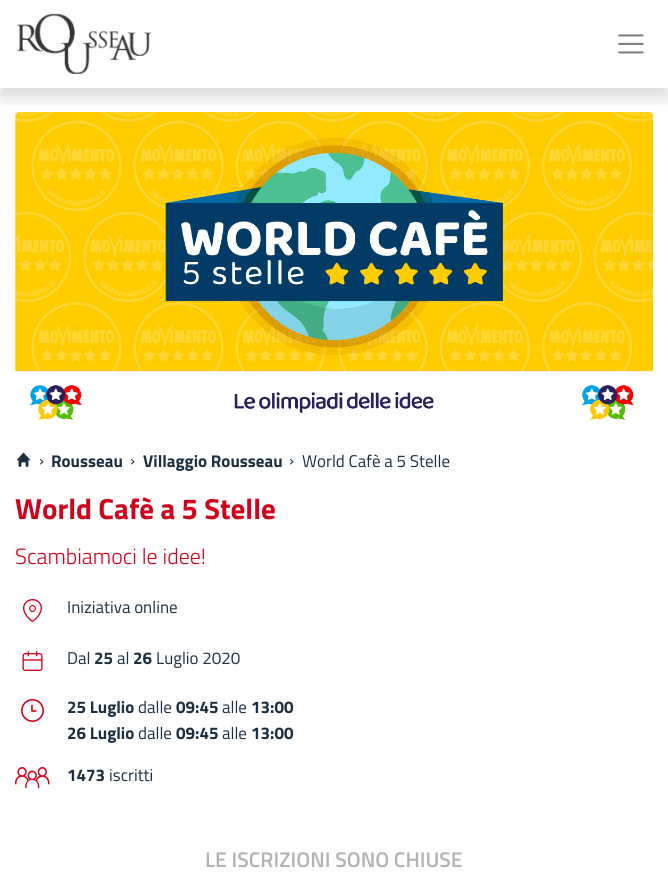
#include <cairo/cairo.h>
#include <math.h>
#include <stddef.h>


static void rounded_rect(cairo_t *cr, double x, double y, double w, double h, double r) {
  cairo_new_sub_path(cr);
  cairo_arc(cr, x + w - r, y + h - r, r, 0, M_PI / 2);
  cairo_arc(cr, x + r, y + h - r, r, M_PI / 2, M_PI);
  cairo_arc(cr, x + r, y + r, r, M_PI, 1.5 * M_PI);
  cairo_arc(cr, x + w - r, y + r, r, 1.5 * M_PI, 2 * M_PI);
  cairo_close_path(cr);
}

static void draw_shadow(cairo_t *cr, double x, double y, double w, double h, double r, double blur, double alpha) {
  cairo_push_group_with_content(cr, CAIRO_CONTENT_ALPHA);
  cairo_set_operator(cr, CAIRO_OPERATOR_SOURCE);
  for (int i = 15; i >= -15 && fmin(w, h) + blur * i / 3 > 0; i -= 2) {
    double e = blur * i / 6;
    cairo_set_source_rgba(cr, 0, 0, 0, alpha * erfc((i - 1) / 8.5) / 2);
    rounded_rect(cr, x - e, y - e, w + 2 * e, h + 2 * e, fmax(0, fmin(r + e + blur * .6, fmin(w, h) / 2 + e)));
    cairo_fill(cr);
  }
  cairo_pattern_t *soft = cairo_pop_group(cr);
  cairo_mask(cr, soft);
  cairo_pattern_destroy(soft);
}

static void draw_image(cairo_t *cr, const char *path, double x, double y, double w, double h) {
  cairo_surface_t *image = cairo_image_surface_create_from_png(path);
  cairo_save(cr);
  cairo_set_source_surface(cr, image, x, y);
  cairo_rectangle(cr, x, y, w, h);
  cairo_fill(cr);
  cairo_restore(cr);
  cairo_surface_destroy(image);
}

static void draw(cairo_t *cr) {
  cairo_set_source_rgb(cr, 1, 1, 1);
  cairo_paint(cr);
  draw_image(cr, "images/3.png", 15, 112, 638, 308);
  cairo_save(cr);
  cairo_rectangle(cr, 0, 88, 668, 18);
  cairo_clip(cr);
  cairo_set_source_rgb(cr, 0, 0, 0);
  draw_shadow(cr, 0, 9, 668, 88, 0, 8.5, 0.15);
  cairo_restore(cr);
  draw_image(cr, "images/1.png", 17, 13, 135, 61);
  draw_image(cr, "images/2.png", 618, 34, 26, 20);
  draw_image(cr, "images/4.png", 16, 452, 15, 15);
  draw_image(cr, "images/5.png", 23, 599, 19, 23);
  draw_image(cr, "images/6.png", 22, 651, 21, 20);
  draw_image(cr, "images/7.png", 21, 699, 23, 23);
  draw_image(cr, "images/8.png", 15, 767, 35, 21);
  cairo_select_font_face(cr, "Titillium Web", CAIRO_FONT_SLANT_NORMAL, CAIRO_FONT_WEIGHT_NORMAL);
  cairo_set_font_size(cr, 17);
  cairo_set_source_rgb(cr, 28 / 255.0, 48 / 255.0, 65 / 255.0);
  cairo_move_to(cr, 39, 466);
  cairo_show_text(cr, "›");
  cairo_select_font_face(cr, "Titillium Web", CAIRO_FONT_SLANT_NORMAL, CAIRO_FONT_WEIGHT_BOLD);
  cairo_move_to(cr, 51, 467);
  cairo_show_text(cr, "Rousseau");
  cairo_select_font_face(cr, "Titillium Web", CAIRO_FONT_SLANT_NORMAL, CAIRO_FONT_WEIGHT_NORMAL);
  cairo_move_to(cr, 130, 466);
  cairo_show_text(cr, "›");
  cairo_select_font_face(cr, "Titillium Web", CAIRO_FONT_SLANT_NORMAL, CAIRO_FONT_WEIGHT_BOLD);
  cairo_move_to(cr, 143, 467);
  cairo_show_text(cr, "Villaggio Rousseau");
  cairo_select_font_face(cr, "Titillium Web", CAIRO_FONT_SLANT_NORMAL, CAIRO_FONT_WEIGHT_NORMAL);
  cairo_move_to(cr, 289, 466);
  cairo_show_text(cr, "›");
  cairo_move_to(cr, 302, 467);
  cairo_show_text(cr, "World Cafè a 5 Stelle");
  cairo_select_font_face(cr, "Titillium Web", CAIRO_FONT_SLANT_NORMAL, CAIRO_FONT_WEIGHT_BOLD);
  cairo_set_font_size(cr, 29);
  cairo_set_source_rgb(cr, 208 / 255.0, 2 / 255.0, 27 / 255.0);
  cairo_move_to(cr, 15, 519);
  cairo_show_text(cr, "World Cafè a 5 Stelle");
  cairo_select_font_face(cr, "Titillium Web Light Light", CAIRO_FONT_SLANT_NORMAL, CAIRO_FONT_WEIGHT_NORMAL);
  cairo_set_font_size(cr, 22);
  cairo_move_to(cr, 15, 564);
  cairo_show_text(cr, "Scambiamoci le idee!");
  cairo_select_font_face(cr, "Titillium Web", CAIRO_FONT_SLANT_NORMAL, CAIRO_FONT_WEIGHT_NORMAL);
  cairo_set_font_size(cr, 17);
  cairo_set_source_rgb(cr, 28 / 255.0, 48 / 255.0, 65 / 255.0);
  cairo_move_to(cr, 67, 613);
  cairo_show_text(cr, "Iniziativa online");
  cairo_move_to(cr, 67, 664);
  cairo_show_text(cr, "Dal");
  cairo_select_font_face(cr, "Titillium Web", CAIRO_FONT_SLANT_NORMAL, CAIRO_FONT_WEIGHT_BOLD);
  cairo_move_to(cr, 94, 664);
  cairo_show_text(cr, "25");
  cairo_select_font_face(cr, "Titillium Web", CAIRO_FONT_SLANT_NORMAL, CAIRO_FONT_WEIGHT_NORMAL);
  cairo_move_to(cr, 117, 664);
  cairo_show_text(cr, "al");
  cairo_select_font_face(cr, "Titillium Web", CAIRO_FONT_SLANT_NORMAL, CAIRO_FONT_WEIGHT_BOLD);
  cairo_move_to(cr, 133, 664);
  cairo_show_text(cr, "26");
  cairo_select_font_face(cr, "Titillium Web", CAIRO_FONT_SLANT_NORMAL, CAIRO_FONT_WEIGHT_NORMAL);
  cairo_move_to(cr, 156, 664);
  cairo_show_text(cr, "Luglio 2020");
  cairo_select_font_face(cr, "Titillium Web", CAIRO_FONT_SLANT_NORMAL, CAIRO_FONT_WEIGHT_BOLD);
  cairo_move_to(cr, 67, 713);
  cairo_show_text(cr, "25 Luglio");
  cairo_select_font_face(cr, "Titillium Web", CAIRO_FONT_SLANT_NORMAL, CAIRO_FONT_WEIGHT_NORMAL);
  cairo_move_to(cr, 138, 713);
  cairo_show_text(cr, "dalle");
  cairo_select_font_face(cr, "Titillium Web", CAIRO_FONT_SLANT_NORMAL, CAIRO_FONT_WEIGHT_BOLD);
  cairo_move_to(cr, 176, 713);
  cairo_show_text(cr, "09:45");
  cairo_select_font_face(cr, "Titillium Web", CAIRO_FONT_SLANT_NORMAL, CAIRO_FONT_WEIGHT_NORMAL);
  cairo_move_to(cr, 222, 713);
  cairo_show_text(cr, "alle");
  cairo_select_font_face(cr, "Titillium Web", CAIRO_FONT_SLANT_NORMAL, CAIRO_FONT_WEIGHT_BOLD);
  cairo_move_to(cr, 251, 713);
  cairo_show_text(cr, "13:00");
  cairo_move_to(cr, 67, 739);
  cairo_show_text(cr, "26 Luglio");
  cairo_select_font_face(cr, "Titillium Web", CAIRO_FONT_SLANT_NORMAL, CAIRO_FONT_WEIGHT_NORMAL);
  cairo_move_to(cr, 138, 739);
  cairo_show_text(cr, "dalle");
  cairo_select_font_face(cr, "Titillium Web", CAIRO_FONT_SLANT_NORMAL, CAIRO_FONT_WEIGHT_BOLD);
  cairo_move_to(cr, 176, 739);
  cairo_show_text(cr, "09:45");
  cairo_select_font_face(cr, "Titillium Web", CAIRO_FONT_SLANT_NORMAL, CAIRO_FONT_WEIGHT_NORMAL);
  cairo_move_to(cr, 222, 739);
  cairo_show_text(cr, "alle");
  cairo_select_font_face(cr, "Titillium Web", CAIRO_FONT_SLANT_NORMAL, CAIRO_FONT_WEIGHT_BOLD);
  cairo_move_to(cr, 251, 739);
  cairo_show_text(cr, "13:00");
  cairo_move_to(cr, 67, 781);
  cairo_show_text(cr, "1473");
  cairo_select_font_face(cr, "Titillium Web", CAIRO_FONT_SLANT_NORMAL, CAIRO_FONT_WEIGHT_NORMAL);
  cairo_move_to(cr, 109, 781);
  cairo_show_text(cr, "iscritti");
  cairo_select_font_face(cr, "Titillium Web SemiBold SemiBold", CAIRO_FONT_SLANT_NORMAL, CAIRO_FONT_WEIGHT_NORMAL);
  cairo_set_font_size(cr, 21.25);
  cairo_set_source_rgb(cr, 177 / 255.0, 179 / 255.0, 180 / 255.0);
  cairo_move_to(cr, 205, 867);
  cairo_show_text(cr, "LE ISCRIZIONI SONO CHIUSE");
}

int main(void) {
  cairo_surface_t *surface = cairo_image_surface_create(CAIRO_FORMAT_RGB24, 668, 874);
  cairo_t *cr = cairo_create(surface);
  cairo_font_options_t *options = cairo_font_options_create();
  cairo_font_options_set_hint_metrics(options, CAIRO_HINT_METRICS_OFF);
  cairo_font_options_set_hint_style(options, CAIRO_HINT_STYLE_NONE);
  cairo_set_font_options(cr, options);
  cairo_set_miter_limit(cr, 4);
  draw(cr);
  cairo_surface_write_to_png(surface, "out.png");
  cairo_font_options_destroy(options);
  cairo_destroy(cr);
  cairo_surface_destroy(surface);
  return 0;
}
